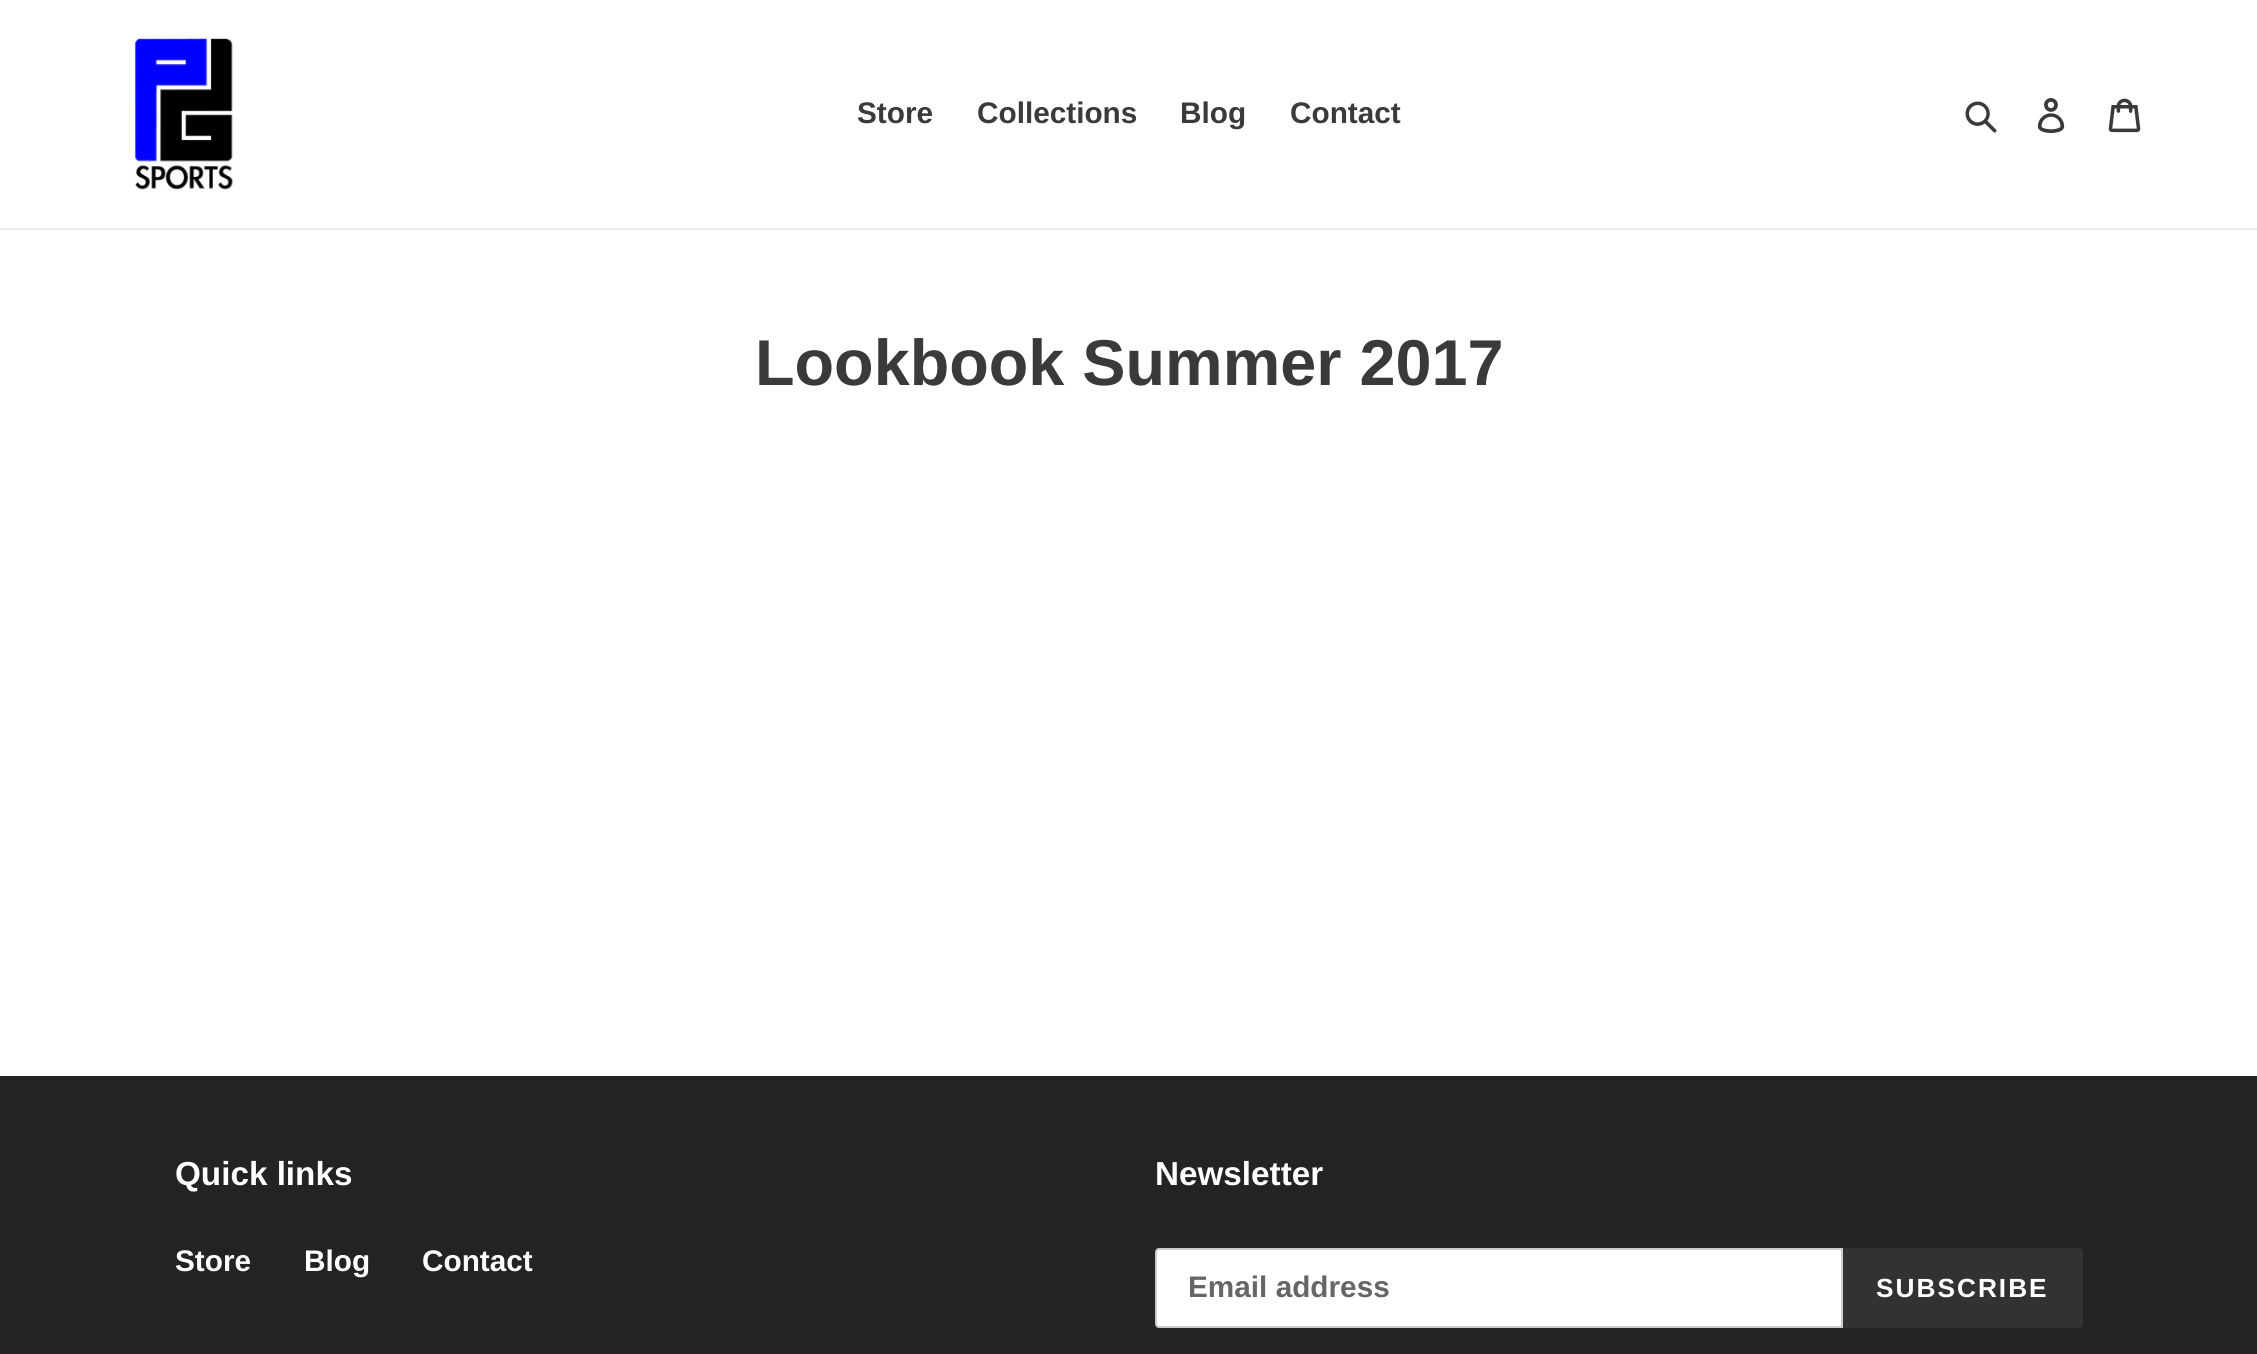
#include <cairo/cairo.h>
#include <math.h>
#include <stddef.h>


static void draw_spaced(cairo_t *cr, double x, double y, const char *s, double letter, double word) {
  cairo_move_to(cr, x, y);
  while (*s) {
    char ch[5] = {0};
    int n = 0;
    do ch[n++] = *s++; while ((*s & 0xC0) == 0x80);
    cairo_show_text(cr, ch);
    cairo_rel_move_to(cr, letter + word * (*ch == ' '), 0);
  }
}

static void draw_image(cairo_t *cr, const char *path, double x, double y, double w, double h) {
  cairo_surface_t *image = cairo_image_surface_create_from_png(path);
  cairo_save(cr);
  cairo_set_source_surface(cr, image, x, y);
  cairo_rectangle(cr, x, y, w, h);
  cairo_fill(cr);
  cairo_restore(cr);
  cairo_surface_destroy(image);
}

static void draw(cairo_t *cr) {
  cairo_set_source_rgb(cr, 1, 1, 1);
  cairo_paint(cr);
  cairo_set_source_rgb(cr, 235 / 255.0, 235 / 255.0, 235 / 255.0);
  cairo_rectangle(cr, 0, 228, 2257, 2);
  cairo_fill(cr);
  draw_image(cr, "images/1.png", 134, 37, 99, 153);
  draw_image(cr, "images/2.png", 1965, 101, 32, 32);
  draw_image(cr, "images/3.png", 2037, 98, 28, 35);
  draw_image(cr, "images/4.png", 2108, 98, 33, 35);
  cairo_set_source_rgb(cr, 35 / 255.0, 35 / 255.0, 35 / 255.0);
  cairo_rectangle(cr, 0, 1076, 2257, 278);
  cairo_fill(cr);
  cairo_set_source_rgb(cr, 1, 1, 1);
  cairo_new_path(cr);
  cairo_move_to(cr, 1159, 1249);
  cairo_line_to(cr, 1842, 1249);
  cairo_line_to(cr, 1842, 1327);
  cairo_line_to(cr, 1159, 1327);
  cairo_curve_to(cr, 1157.5, 1327, 1156, 1325.5, 1156, 1324);
  cairo_line_to(cr, 1156, 1252);
  cairo_curve_to(cr, 1156, 1250.5, 1157.5, 1249, 1159, 1249);
  cairo_close_path(cr);
  cairo_fill_preserve(cr);
  cairo_set_source_rgb(cr, 204 / 255.0, 204 / 255.0, 204 / 255.0);
  cairo_stroke(cr);
  cairo_set_source_rgb(cr, 51 / 255.0, 50 / 255.0, 50 / 255.0);
  cairo_new_path(cr);
  cairo_move_to(cr, 1843, 1248);
  cairo_line_to(cr, 2079, 1248);
  cairo_curve_to(cr, 2081, 1248, 2083, 1250, 2083, 1252);
  cairo_line_to(cr, 2083, 1324);
  cairo_curve_to(cr, 2083, 1326, 2081, 1328, 2079, 1328);
  cairo_line_to(cr, 1843, 1328);
  cairo_close_path(cr);
  cairo_fill(cr);
  cairo_select_font_face(cr, "Liberation Sans", CAIRO_FONT_SLANT_NORMAL, CAIRO_FONT_WEIGHT_BOLD);
  cairo_set_font_size(cr, 29.75);
  cairo_set_source_rgb(cr, 58 / 255.0, 58 / 255.0, 58 / 255.0);
  cairo_move_to(cr, 857, 123);
  cairo_show_text(cr, "Store");
  cairo_move_to(cr, 977, 123);
  cairo_show_text(cr, "Collections");
  cairo_move_to(cr, 1180, 123);
  cairo_show_text(cr, "Blog");
  cairo_move_to(cr, 1290, 123);
  cairo_show_text(cr, "Contact");
  cairo_set_font_size(cr, 64.75);
  cairo_move_to(cr, 755, 385);
  cairo_show_text(cr, "Lookbook Summer 2017");
  cairo_set_font_size(cr, 33.25);
  cairo_set_source_rgb(cr, 1, 1, 1);
  cairo_move_to(cr, 175, 1185);
  cairo_show_text(cr, "Quick links");
  cairo_set_font_size(cr, 29.75);
  cairo_move_to(cr, 175, 1271);
  cairo_show_text(cr, "Store");
  cairo_move_to(cr, 304, 1271);
  cairo_show_text(cr, "Blog");
  cairo_move_to(cr, 422, 1271);
  cairo_show_text(cr, "Contact");
  cairo_set_font_size(cr, 33.25);
  cairo_move_to(cr, 1155, 1185);
  cairo_show_text(cr, "Newsletter");
  cairo_set_font_size(cr, 29.75);
  cairo_set_source_rgb(cr, 102 / 255.0, 102 / 255.0, 102 / 255.0);
  cairo_move_to(cr, 1188, 1297);
  cairo_show_text(cr, "Email address");
  cairo_set_font_size(cr, 26.25);
  cairo_set_source_rgb(cr, 1, 1, 1);
  draw_spaced(cr, 1876, 1297, "SUBSCRIBE", 2, 0);
}

int main(void) {
  cairo_surface_t *surface = cairo_image_surface_create(CAIRO_FORMAT_RGB24, 2257, 1354);
  cairo_t *cr = cairo_create(surface);
  cairo_font_options_t *options = cairo_font_options_create();
  cairo_font_options_set_hint_metrics(options, CAIRO_HINT_METRICS_OFF);
  cairo_font_options_set_hint_style(options, CAIRO_HINT_STYLE_NONE);
  cairo_set_font_options(cr, options);
  cairo_set_miter_limit(cr, 4);
  draw(cr);
  cairo_surface_write_to_png(surface, "out.png");
  cairo_font_options_destroy(options);
  cairo_destroy(cr);
  cairo_surface_destroy(surface);
  return 0;
}
